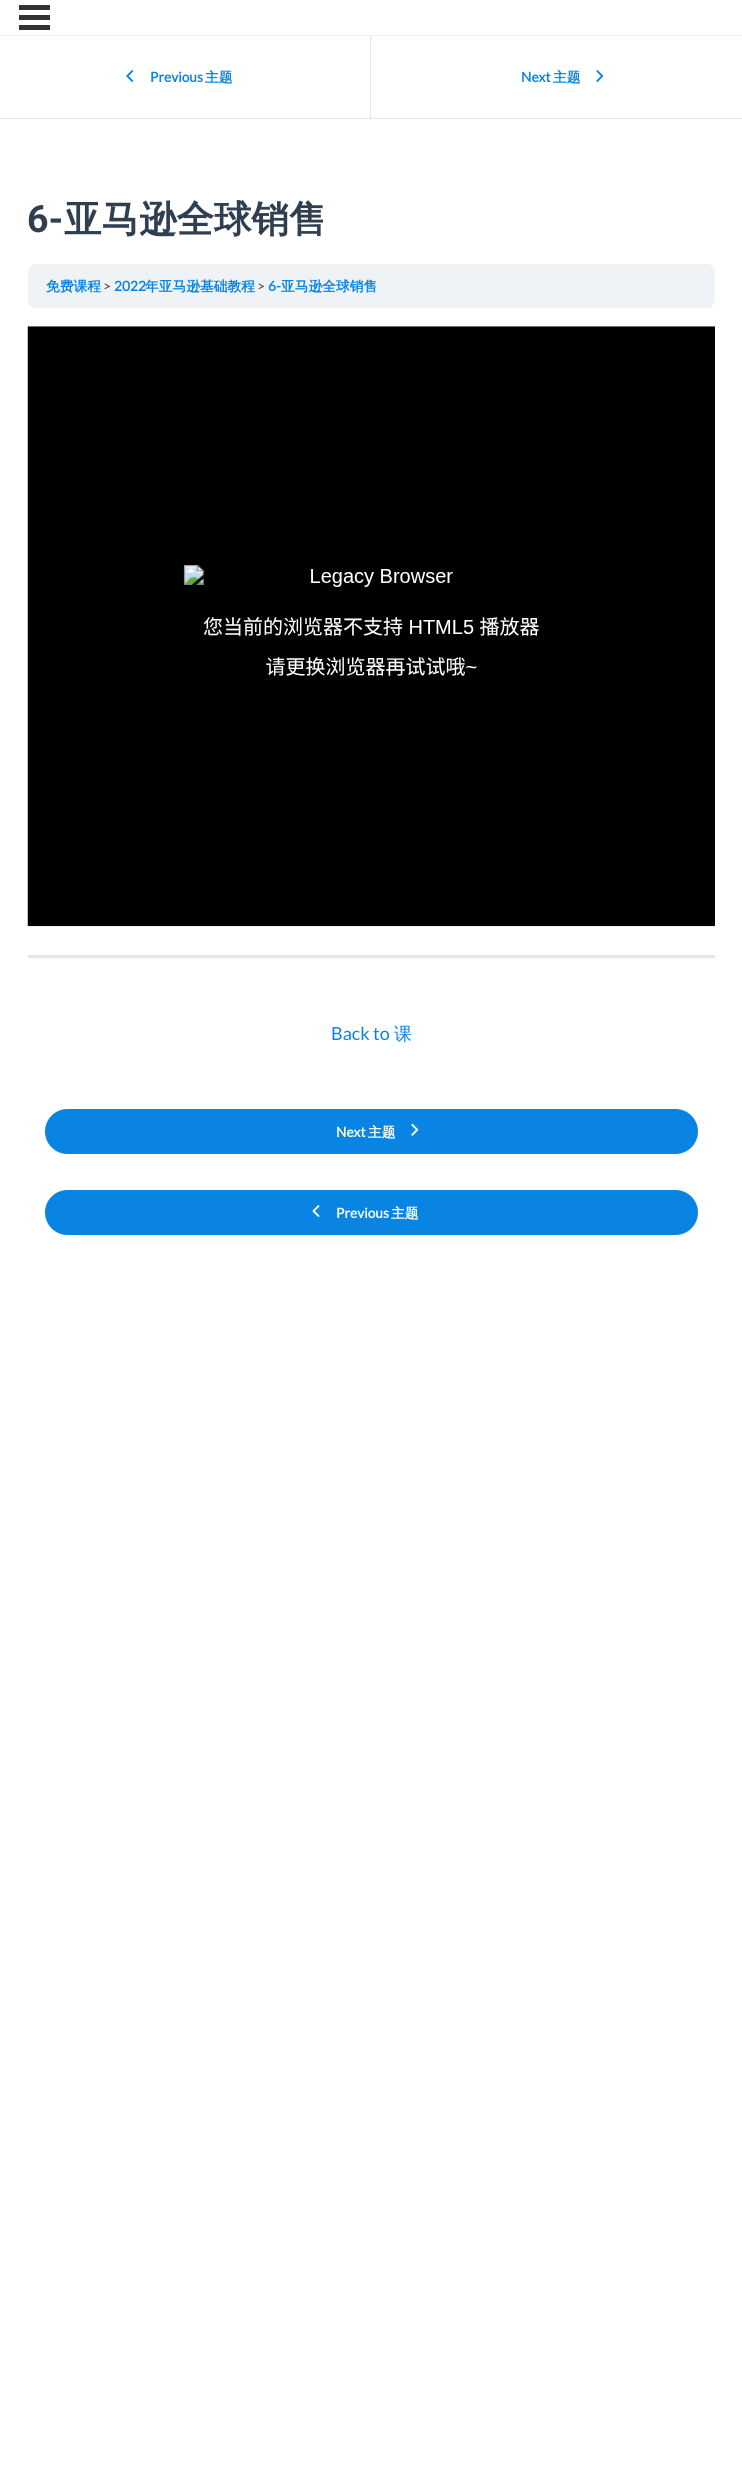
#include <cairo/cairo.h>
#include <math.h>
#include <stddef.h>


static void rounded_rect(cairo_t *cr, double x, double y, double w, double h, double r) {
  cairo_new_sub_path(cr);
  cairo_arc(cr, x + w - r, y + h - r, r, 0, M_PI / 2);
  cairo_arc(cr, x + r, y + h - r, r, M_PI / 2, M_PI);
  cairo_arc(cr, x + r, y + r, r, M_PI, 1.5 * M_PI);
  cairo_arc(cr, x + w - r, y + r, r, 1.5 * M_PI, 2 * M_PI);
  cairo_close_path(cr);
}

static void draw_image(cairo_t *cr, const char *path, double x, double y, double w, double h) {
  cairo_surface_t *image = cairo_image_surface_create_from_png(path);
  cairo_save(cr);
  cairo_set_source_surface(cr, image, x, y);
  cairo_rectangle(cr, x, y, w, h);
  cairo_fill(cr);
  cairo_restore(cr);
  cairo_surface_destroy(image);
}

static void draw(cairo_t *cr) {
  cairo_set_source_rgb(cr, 1, 1, 1);
  cairo_paint(cr);
  cairo_set_source_rgb(cr, 226 / 255.0, 231 / 255.0, 237 / 255.0);
  cairo_rectangle(cr, 0, 118, 742, 1);
  cairo_fill(cr);
  cairo_set_source_rgb(cr, 51 / 255.0, 51 / 255.0, 51 / 255.0);
  cairo_rectangle(cr, 19, 5, 31, 5);
  cairo_fill(cr);
  cairo_rectangle(cr, 19, 15, 31, 5);
  cairo_fill(cr);
  cairo_rectangle(cr, 19, 25, 31, 5);
  cairo_fill(cr);
  cairo_set_source_rgb(cr, 239 / 255.0, 239 / 255.0, 239 / 255.0);
  cairo_rectangle(cr, 0, 35, 742, 1);
  cairo_fill(cr);
  cairo_set_source_rgb(cr, 226 / 255.0, 231 / 255.0, 237 / 255.0);
  cairo_rectangle(cr, 370, 36, 1, 82);
  cairo_fill(cr);
  draw_image(cr, "images/1.png", 126, 70, 8, 12);
  draw_image(cr, "images/2.png", 596, 70, 8, 12);
  cairo_set_source_rgb(cr, 240 / 255.0, 243 / 255.0, 246 / 255.0);
  rounded_rect(cr, 28, 264, 687, 44, 8);
  cairo_fill(cr);
  draw_image(cr, "images/3.png", 27, 326, 688, 601);
  cairo_set_source_rgb(cr, 226 / 255.0, 231 / 255.0, 237 / 255.0);
  cairo_rectangle(cr, 28, 955, 687, 3);
  cairo_fill(cr);
  cairo_set_source_rgb(cr, 9 / 255.0, 132 / 255.0, 227 / 255.0);
  rounded_rect(cr, 45, 1109, 653, 45, 22.5);
  cairo_fill(cr);
  draw_image(cr, "images/4.png", 411, 1123, 8, 13);
  rounded_rect(cr, 45, 1190, 653, 45, 22.5);
  cairo_fill(cr);
  draw_image(cr, "images/5.png", 312, 1205, 8, 12);
  cairo_select_font_face(cr, "Lato", CAIRO_FONT_SLANT_NORMAL, CAIRO_FONT_WEIGHT_BOLD);
  cairo_set_font_size(cr, 13.75);
  cairo_move_to(cr, 150, 82);
  cairo_show_text(cr, "Previous");
  cairo_select_font_face(cr, "WenQuanYi Zen Hei", CAIRO_FONT_SLANT_NORMAL, CAIRO_FONT_WEIGHT_BOLD);
  cairo_move_to(cr, 205, 82);
  cairo_show_text(cr, "主题");
  cairo_select_font_face(cr, "Lato", CAIRO_FONT_SLANT_NORMAL, CAIRO_FONT_WEIGHT_BOLD);
  cairo_move_to(cr, 521, 82);
  cairo_show_text(cr, "Next");
  cairo_select_font_face(cr, "WenQuanYi Zen Hei", CAIRO_FONT_SLANT_NORMAL, CAIRO_FONT_WEIGHT_BOLD);
  cairo_move_to(cr, 553, 82);
  cairo_show_text(cr, "主题");
  cairo_select_font_face(cr, "Roboto", CAIRO_FONT_SLANT_NORMAL, CAIRO_FONT_WEIGHT_BOLD);
  cairo_set_font_size(cr, 37.5);
  cairo_set_source_rgb(cr, 47 / 255.0, 63 / 255.0, 80 / 255.0);
  cairo_move_to(cr, 27, 232);
  cairo_show_text(cr, "6-");
  cairo_select_font_face(cr, "WenQuanYi Zen Hei", CAIRO_FONT_SLANT_NORMAL, CAIRO_FONT_WEIGHT_BOLD);
  cairo_move_to(cr, 64, 232);
  cairo_show_text(cr, "亚马逊全球销售");
  cairo_set_font_size(cr, 13.75);
  cairo_set_source_rgb(cr, 9 / 255.0, 132 / 255.0, 227 / 255.0);
  cairo_move_to(cr, 46, 291);
  cairo_show_text(cr, "免费课程");
  cairo_select_font_face(cr, "Lato", CAIRO_FONT_SLANT_NORMAL, CAIRO_FONT_WEIGHT_NORMAL);
  cairo_set_source_rgb(cr, 58 / 255.0, 58 / 255.0, 58 / 255.0);
  cairo_move_to(cr, 103, 291);
  cairo_show_text(cr, ">");
  cairo_select_font_face(cr, "Lato", CAIRO_FONT_SLANT_NORMAL, CAIRO_FONT_WEIGHT_BOLD);
  cairo_set_source_rgb(cr, 9 / 255.0, 132 / 255.0, 227 / 255.0);
  cairo_move_to(cr, 114, 291);
  cairo_show_text(cr, "2022");
  cairo_select_font_face(cr, "WenQuanYi Zen Hei", CAIRO_FONT_SLANT_NORMAL, CAIRO_FONT_WEIGHT_BOLD);
  cairo_move_to(cr, 145, 291);
  cairo_show_text(cr, "年亚马逊基础教程");
  cairo_select_font_face(cr, "Lato", CAIRO_FONT_SLANT_NORMAL, CAIRO_FONT_WEIGHT_NORMAL);
  cairo_set_source_rgb(cr, 58 / 255.0, 58 / 255.0, 58 / 255.0);
  cairo_move_to(cr, 257, 291);
  cairo_show_text(cr, ">");
  cairo_select_font_face(cr, "Lato", CAIRO_FONT_SLANT_NORMAL, CAIRO_FONT_WEIGHT_BOLD);
  cairo_set_source_rgb(cr, 9 / 255.0, 132 / 255.0, 227 / 255.0);
  cairo_move_to(cr, 268, 291);
  cairo_show_text(cr, "6-");
  cairo_select_font_face(cr, "WenQuanYi Zen Hei", CAIRO_FONT_SLANT_NORMAL, CAIRO_FONT_WEIGHT_BOLD);
  cairo_move_to(cr, 281, 291);
  cairo_show_text(cr, "亚马逊全球销售");
  cairo_select_font_face(cr, "Lato", CAIRO_FONT_SLANT_NORMAL, CAIRO_FONT_WEIGHT_NORMAL);
  cairo_set_font_size(cr, 18);
  cairo_move_to(cr, 331, 1040);
  cairo_show_text(cr, "Back to");
  cairo_select_font_face(cr, "WenQuanYi Zen Hei Medium", CAIRO_FONT_SLANT_NORMAL, CAIRO_FONT_WEIGHT_NORMAL);
  cairo_move_to(cr, 394, 1040);
  cairo_show_text(cr, "课");
  cairo_select_font_face(cr, "Lato", CAIRO_FONT_SLANT_NORMAL, CAIRO_FONT_WEIGHT_BOLD);
  cairo_set_font_size(cr, 13.75);
  cairo_set_source_rgb(cr, 1, 1, 1);
  cairo_move_to(cr, 336, 1137);
  cairo_show_text(cr, "Next");
  cairo_select_font_face(cr, "WenQuanYi Zen Hei", CAIRO_FONT_SLANT_NORMAL, CAIRO_FONT_WEIGHT_BOLD);
  cairo_move_to(cr, 368, 1137);
  cairo_show_text(cr, "主题");
  cairo_select_font_face(cr, "Lato", CAIRO_FONT_SLANT_NORMAL, CAIRO_FONT_WEIGHT_BOLD);
  cairo_move_to(cr, 336, 1218);
  cairo_show_text(cr, "Previous");
  cairo_select_font_face(cr, "WenQuanYi Zen Hei", CAIRO_FONT_SLANT_NORMAL, CAIRO_FONT_WEIGHT_BOLD);
  cairo_move_to(cr, 391, 1218);
  cairo_show_text(cr, "主题");
}

int main(void) {
  cairo_surface_t *surface = cairo_image_surface_create(CAIRO_FORMAT_RGB24, 742, 2490);
  cairo_t *cr = cairo_create(surface);
  cairo_font_options_t *options = cairo_font_options_create();
  cairo_font_options_set_hint_metrics(options, CAIRO_HINT_METRICS_OFF);
  cairo_font_options_set_hint_style(options, CAIRO_HINT_STYLE_NONE);
  cairo_set_font_options(cr, options);
  cairo_set_miter_limit(cr, 4);
  draw(cr);
  cairo_surface_write_to_png(surface, "out.png");
  cairo_font_options_destroy(options);
  cairo_destroy(cr);
  cairo_surface_destroy(surface);
  return 0;
}
